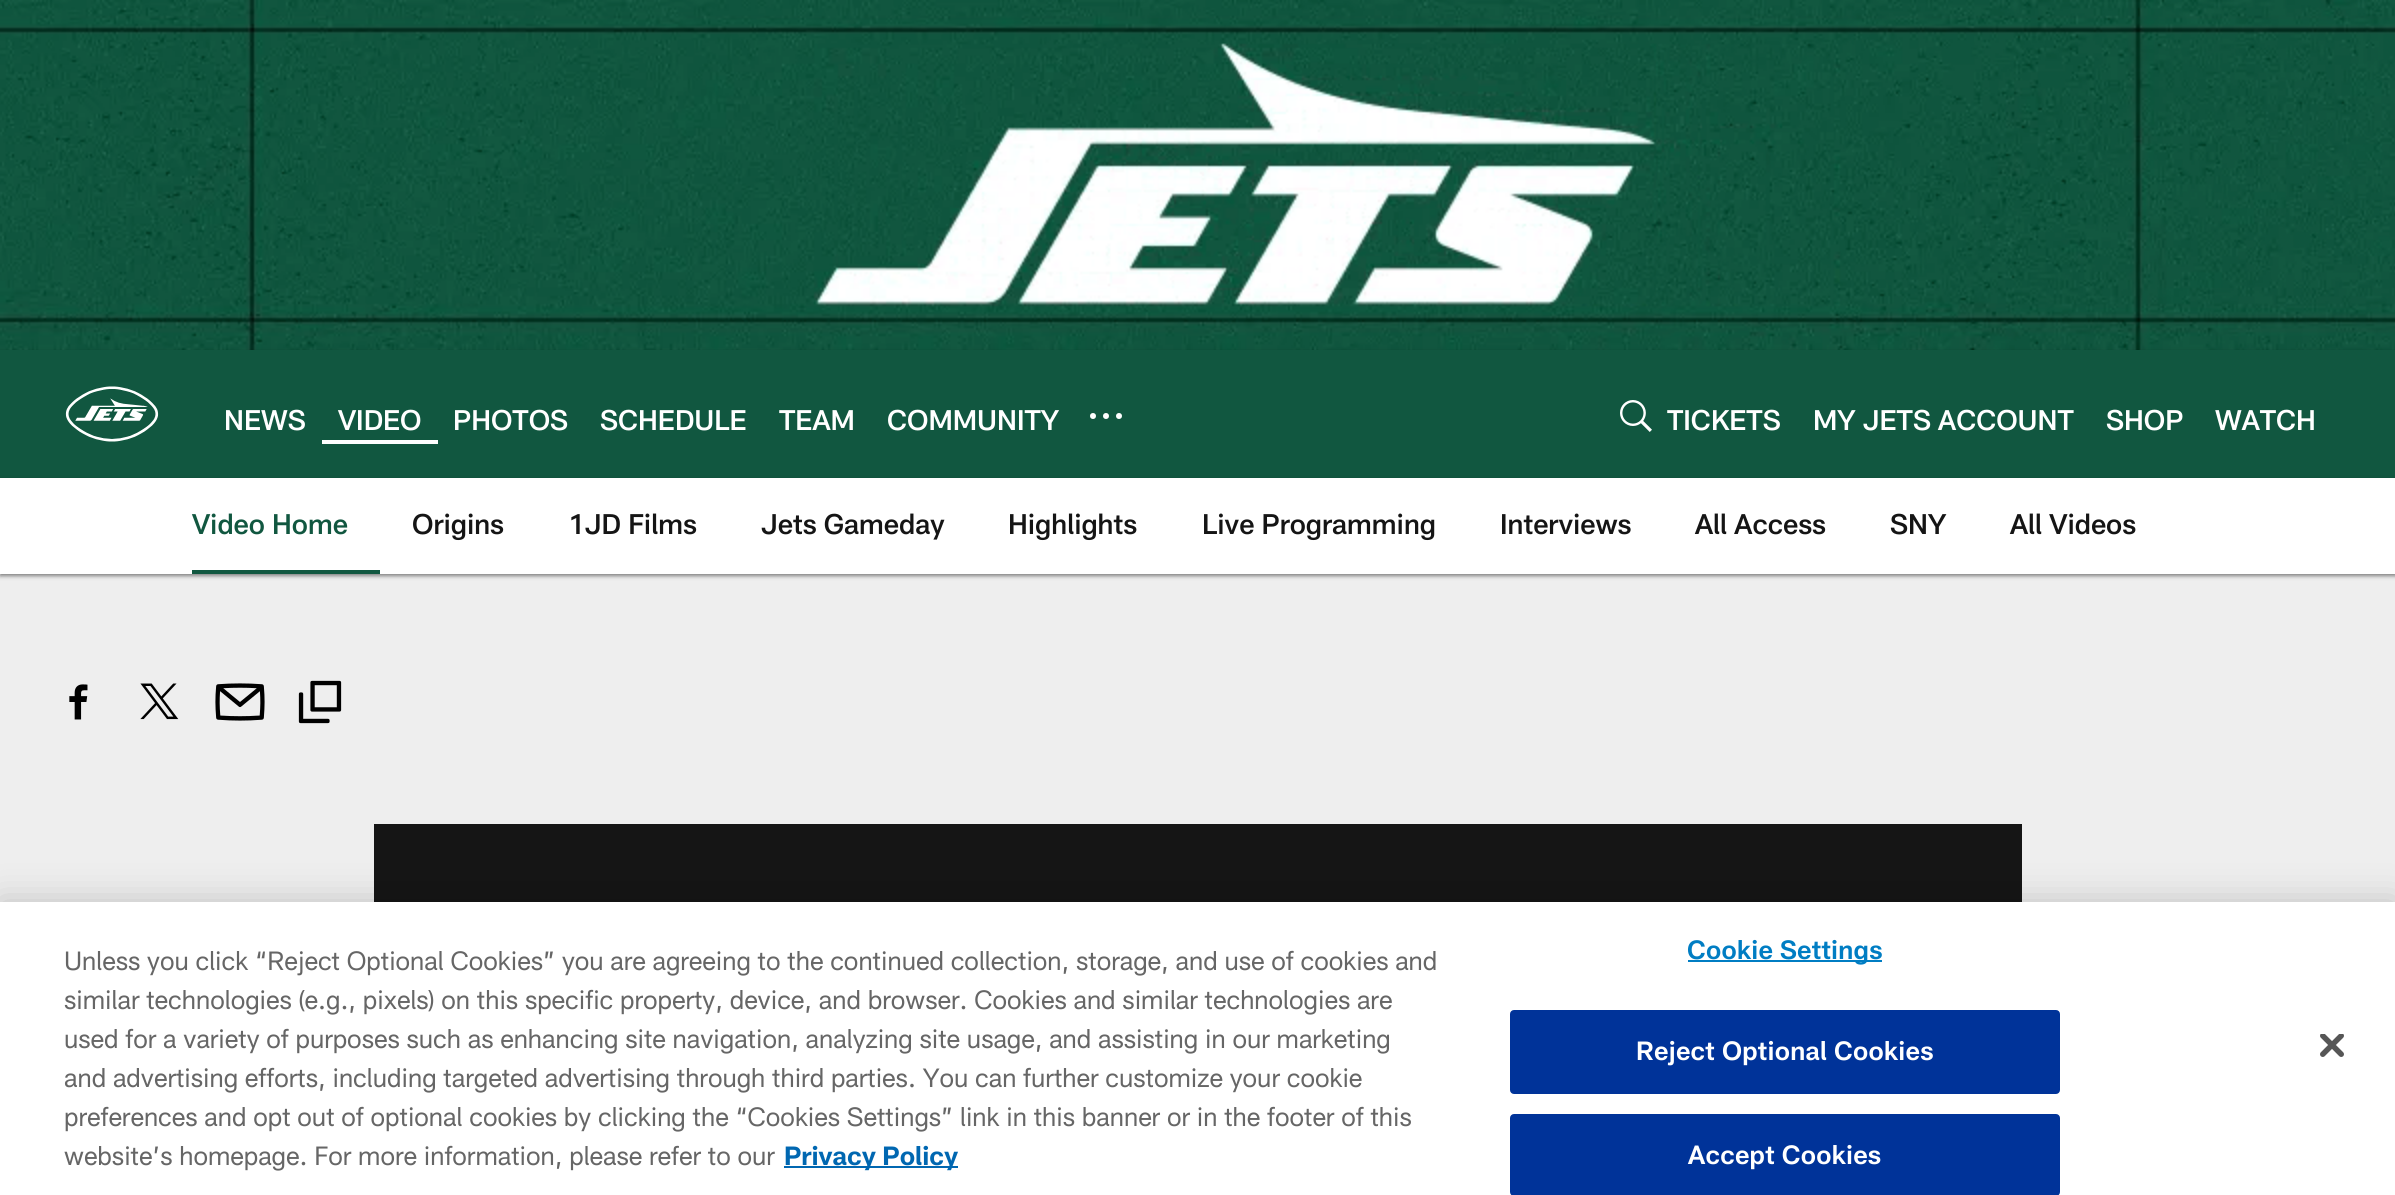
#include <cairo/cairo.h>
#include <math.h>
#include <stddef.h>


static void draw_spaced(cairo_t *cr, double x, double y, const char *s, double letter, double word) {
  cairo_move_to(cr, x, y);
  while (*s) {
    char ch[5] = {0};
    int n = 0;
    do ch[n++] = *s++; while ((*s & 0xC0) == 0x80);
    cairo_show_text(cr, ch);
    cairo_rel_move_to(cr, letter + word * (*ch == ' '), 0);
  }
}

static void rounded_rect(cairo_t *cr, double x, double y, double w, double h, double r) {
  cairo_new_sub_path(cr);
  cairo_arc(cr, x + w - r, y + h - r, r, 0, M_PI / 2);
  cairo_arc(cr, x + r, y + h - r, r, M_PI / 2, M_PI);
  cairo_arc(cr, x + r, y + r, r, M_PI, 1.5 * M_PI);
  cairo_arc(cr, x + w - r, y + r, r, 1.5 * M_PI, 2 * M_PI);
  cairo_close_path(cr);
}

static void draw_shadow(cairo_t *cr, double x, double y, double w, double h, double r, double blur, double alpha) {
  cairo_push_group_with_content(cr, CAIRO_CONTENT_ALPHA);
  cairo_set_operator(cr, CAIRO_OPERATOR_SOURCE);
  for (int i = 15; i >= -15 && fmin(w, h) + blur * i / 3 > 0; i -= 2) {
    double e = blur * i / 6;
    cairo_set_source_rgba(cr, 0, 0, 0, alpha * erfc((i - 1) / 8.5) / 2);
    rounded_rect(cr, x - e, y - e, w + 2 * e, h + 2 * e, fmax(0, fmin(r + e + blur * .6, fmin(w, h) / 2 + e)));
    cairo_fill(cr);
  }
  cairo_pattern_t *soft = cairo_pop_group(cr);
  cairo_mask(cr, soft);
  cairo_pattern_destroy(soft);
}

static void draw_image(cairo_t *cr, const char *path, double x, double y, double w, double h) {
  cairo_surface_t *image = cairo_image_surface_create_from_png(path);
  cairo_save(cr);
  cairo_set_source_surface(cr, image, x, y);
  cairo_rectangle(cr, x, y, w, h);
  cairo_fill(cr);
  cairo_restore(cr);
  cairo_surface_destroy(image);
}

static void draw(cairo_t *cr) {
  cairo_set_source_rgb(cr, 238 / 255.0, 238 / 255.0, 238 / 255.0);
  cairo_paint(cr);
  draw_image(cr, "images/1.png", 0, 0, 2395, 350);
  cairo_set_source_rgb(cr, 0, 0, 0);
  draw_shadow(cr, 0, 352, 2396, 128, 0, 2, 0.47);
  cairo_set_source_rgb(cr, 17 / 255.0, 87 / 255.0, 64 / 255.0);
  cairo_rectangle(cr, 0, 350, 2395, 128);
  cairo_fill(cr);
  draw_image(cr, "images/2.png", 65, 386, 94, 56);
  cairo_set_source_rgb(cr, 1, 1, 1);
  cairo_rectangle(cr, 322, 440, 116, 4);
  cairo_fill(cr);
  cairo_arc(cr, 1119, 416, 3, 0, 2 * M_PI);
  cairo_fill(cr);
  cairo_arc(cr, 1106, 416, 3, 0, 2 * M_PI);
  cairo_fill(cr);
  cairo_arc(cr, 1093, 416, 3, 0, 2 * M_PI);
  cairo_fill(cr);
  draw_image(cr, "images/3.png", 1620, 400, 32, 32);
  cairo_set_source_rgb(cr, 0, 0, 0);
  draw_shadow(cr, 0, 480, 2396, 96, 0, 2, 0.47);
  cairo_set_source_rgb(cr, 1, 1, 1);
  cairo_rectangle(cr, 0, 478, 2395, 96);
  cairo_fill(cr);
  cairo_set_source_rgb(cr, 17 / 255.0, 87 / 255.0, 64 / 255.0);
  cairo_rectangle(cr, 192, 570, 188, 4);
  cairo_fill(cr);
  draw_image(cr, "images/4.png", 69, 684, 19, 36);
  draw_image(cr, "images/5.png", 140, 683, 39, 37);
  draw_image(cr, "images/6.png", 215, 683, 50, 38);
  draw_image(cr, "images/7.png", 298, 680, 44, 44);
  cairo_set_source_rgb(cr, 21 / 255.0, 21 / 255.0, 21 / 255.0);
  cairo_rectangle(cr, 374, 824, 1648, 78);
  cairo_fill(cr);
  cairo_set_source_rgb(cr, 0, 0, 0);
  draw_shadow(cr, 0, 902, 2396, 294, 0, 18, 0.2);
  cairo_set_source_rgb(cr, 1, 1, 1);
  cairo_rectangle(cr, 0, 902, 2395, 293);
  cairo_fill(cr);
  cairo_set_source_rgb(cr, 0, 103 / 255.0, 177 / 255.0);
  cairo_rectangle(cr, 784, 1166, 174, 2);
  cairo_fill(cr);
  cairo_set_source_rgb(cr, 0, 125 / 255.0, 195 / 255.0);
  cairo_rectangle(cr, 1688, 960, 194, 2);
  cairo_fill(cr);
  cairo_set_source_rgb(cr, 0, 51 / 255.0, 153 / 255.0);
  rounded_rect(cr, 1511, 1011, 548, 82, 3);
  cairo_fill_preserve(cr);
  cairo_stroke(cr);
  rounded_rect(cr, 1511, 1115, 548, 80, 3);
  cairo_fill_preserve(cr);
  cairo_stroke(cr);
  draw_image(cr, "images/8.png", 2320, 1034, 24, 23);
  cairo_select_font_face(cr, "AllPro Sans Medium", CAIRO_FONT_SLANT_NORMAL, CAIRO_FONT_WEIGHT_NORMAL);
  cairo_set_font_size(cr, 28);
  cairo_set_source_rgb(cr, 1, 1, 1);
  cairo_move_to(cr, 224, 430);
  cairo_show_text(cr, "NEWS");
  cairo_move_to(cr, 338, 430);
  cairo_show_text(cr, "VIDEO");
  cairo_move_to(cr, 453, 430);
  cairo_show_text(cr, "PHOTOS");
  cairo_move_to(cr, 600, 430);
  cairo_show_text(cr, "SCHEDULE");
  cairo_move_to(cr, 779, 430);
  cairo_show_text(cr, "TEAM");
  cairo_move_to(cr, 887, 430);
  cairo_show_text(cr, "COMMUNITY");
  cairo_move_to(cr, 1667, 430);
  cairo_show_text(cr, "TICKETS");
  cairo_move_to(cr, 1813, 430);
  cairo_show_text(cr, "MY JETS ACCOUNT");
  cairo_move_to(cr, 2106, 430);
  cairo_show_text(cr, "SHOP");
  cairo_move_to(cr, 2215, 430);
  cairo_show_text(cr, "WATCH");
  cairo_set_source_rgb(cr, 17 / 255.0, 87 / 255.0, 64 / 255.0);
  cairo_move_to(cr, 192, 534);
  cairo_show_text(cr, "Video Home");
  cairo_set_source_rgb(cr, 21 / 255.0, 21 / 255.0, 21 / 255.0);
  cairo_move_to(cr, 412, 534);
  cairo_show_text(cr, "Origins");
  cairo_move_to(cr, 568, 534);
  cairo_show_text(cr, "1JD Films");
  cairo_move_to(cr, 761, 534);
  cairo_show_text(cr, "Jets Gameday");
  cairo_move_to(cr, 1008, 534);
  cairo_show_text(cr, "Highlights");
  cairo_move_to(cr, 1202, 534);
  cairo_show_text(cr, "Live Programming");
  cairo_move_to(cr, 1500, 534);
  cairo_show_text(cr, "Interviews");
  cairo_move_to(cr, 1695, 534);
  cairo_show_text(cr, "All Access");
  cairo_move_to(cr, 1890, 534);
  cairo_show_text(cr, "SNY");
  cairo_move_to(cr, 2010, 534);
  cairo_show_text(cr, "All Videos");
  cairo_select_font_face(cr, "AllPro Sans", CAIRO_FONT_SLANT_NORMAL, CAIRO_FONT_WEIGHT_NORMAL);
  cairo_set_font_size(cr, 26.02);
  cairo_set_source_rgb(cr, 102 / 255.0, 102 / 255.0, 102 / 255.0);
  cairo_move_to(cr, 64, 970);
  cairo_show_text(cr, "Unless you click “Reject Optional Cookies” you are agreeing to the continued collection, storage, and use of cookies and");
  cairo_move_to(cr, 64, 1009);
  cairo_show_text(cr, "similar technologies (e.g., pixels) on this specific property, device, and browser. Cookies and similar technologies are");
  cairo_move_to(cr, 64, 1048);
  cairo_show_text(cr, "used for a variety of purposes such as enhancing site navigation, analyzing site usage, and assisting in our marketing");
  cairo_move_to(cr, 64, 1087);
  cairo_show_text(cr, "and advertising efforts, including targeted advertising through third parties. You can further customize your cookie");
  cairo_move_to(cr, 64, 1126);
  cairo_show_text(cr, "preferences and opt out of optional cookies by clicking the “Cookies Settings” link in this banner or in the footer of this");
  cairo_move_to(cr, 64, 1165);
  cairo_show_text(cr, "website’s homepage. For more information, please refer to our");
  cairo_select_font_face(cr, "AllPro Sans", CAIRO_FONT_SLANT_NORMAL, CAIRO_FONT_WEIGHT_BOLD);
  cairo_set_source_rgb(cr, 0, 103 / 255.0, 177 / 255.0);
  cairo_move_to(cr, 784, 1165);
  cairo_show_text(cr, "Privacy Policy");
  cairo_select_font_face(cr, "AllPro Sans SemiBold", CAIRO_FONT_SLANT_NORMAL, CAIRO_FONT_WEIGHT_NORMAL);
  cairo_set_source_rgb(cr, 0, 125 / 255.0, 195 / 255.0);
  draw_spaced(cr, 1687, 959, "Cookie Settings", 0.25, 0);
  cairo_set_source_rgb(cr, 1, 1, 1);
  draw_spaced(cr, 1636, 1060, "Reject Optional Cookies", 0.25, 0);
  draw_spaced(cr, 1688, 1164, "Accept Cookies", 0.25, 0);
}

int main(void) {
  cairo_surface_t *surface = cairo_image_surface_create(CAIRO_FORMAT_RGB24, 2395, 1195);
  cairo_t *cr = cairo_create(surface);
  cairo_font_options_t *options = cairo_font_options_create();
  cairo_font_options_set_hint_metrics(options, CAIRO_HINT_METRICS_OFF);
  cairo_font_options_set_hint_style(options, CAIRO_HINT_STYLE_NONE);
  cairo_set_font_options(cr, options);
  cairo_set_miter_limit(cr, 4);
  draw(cr);
  cairo_surface_write_to_png(surface, "out.png");
  cairo_font_options_destroy(options);
  cairo_destroy(cr);
  cairo_surface_destroy(surface);
  return 0;
}
